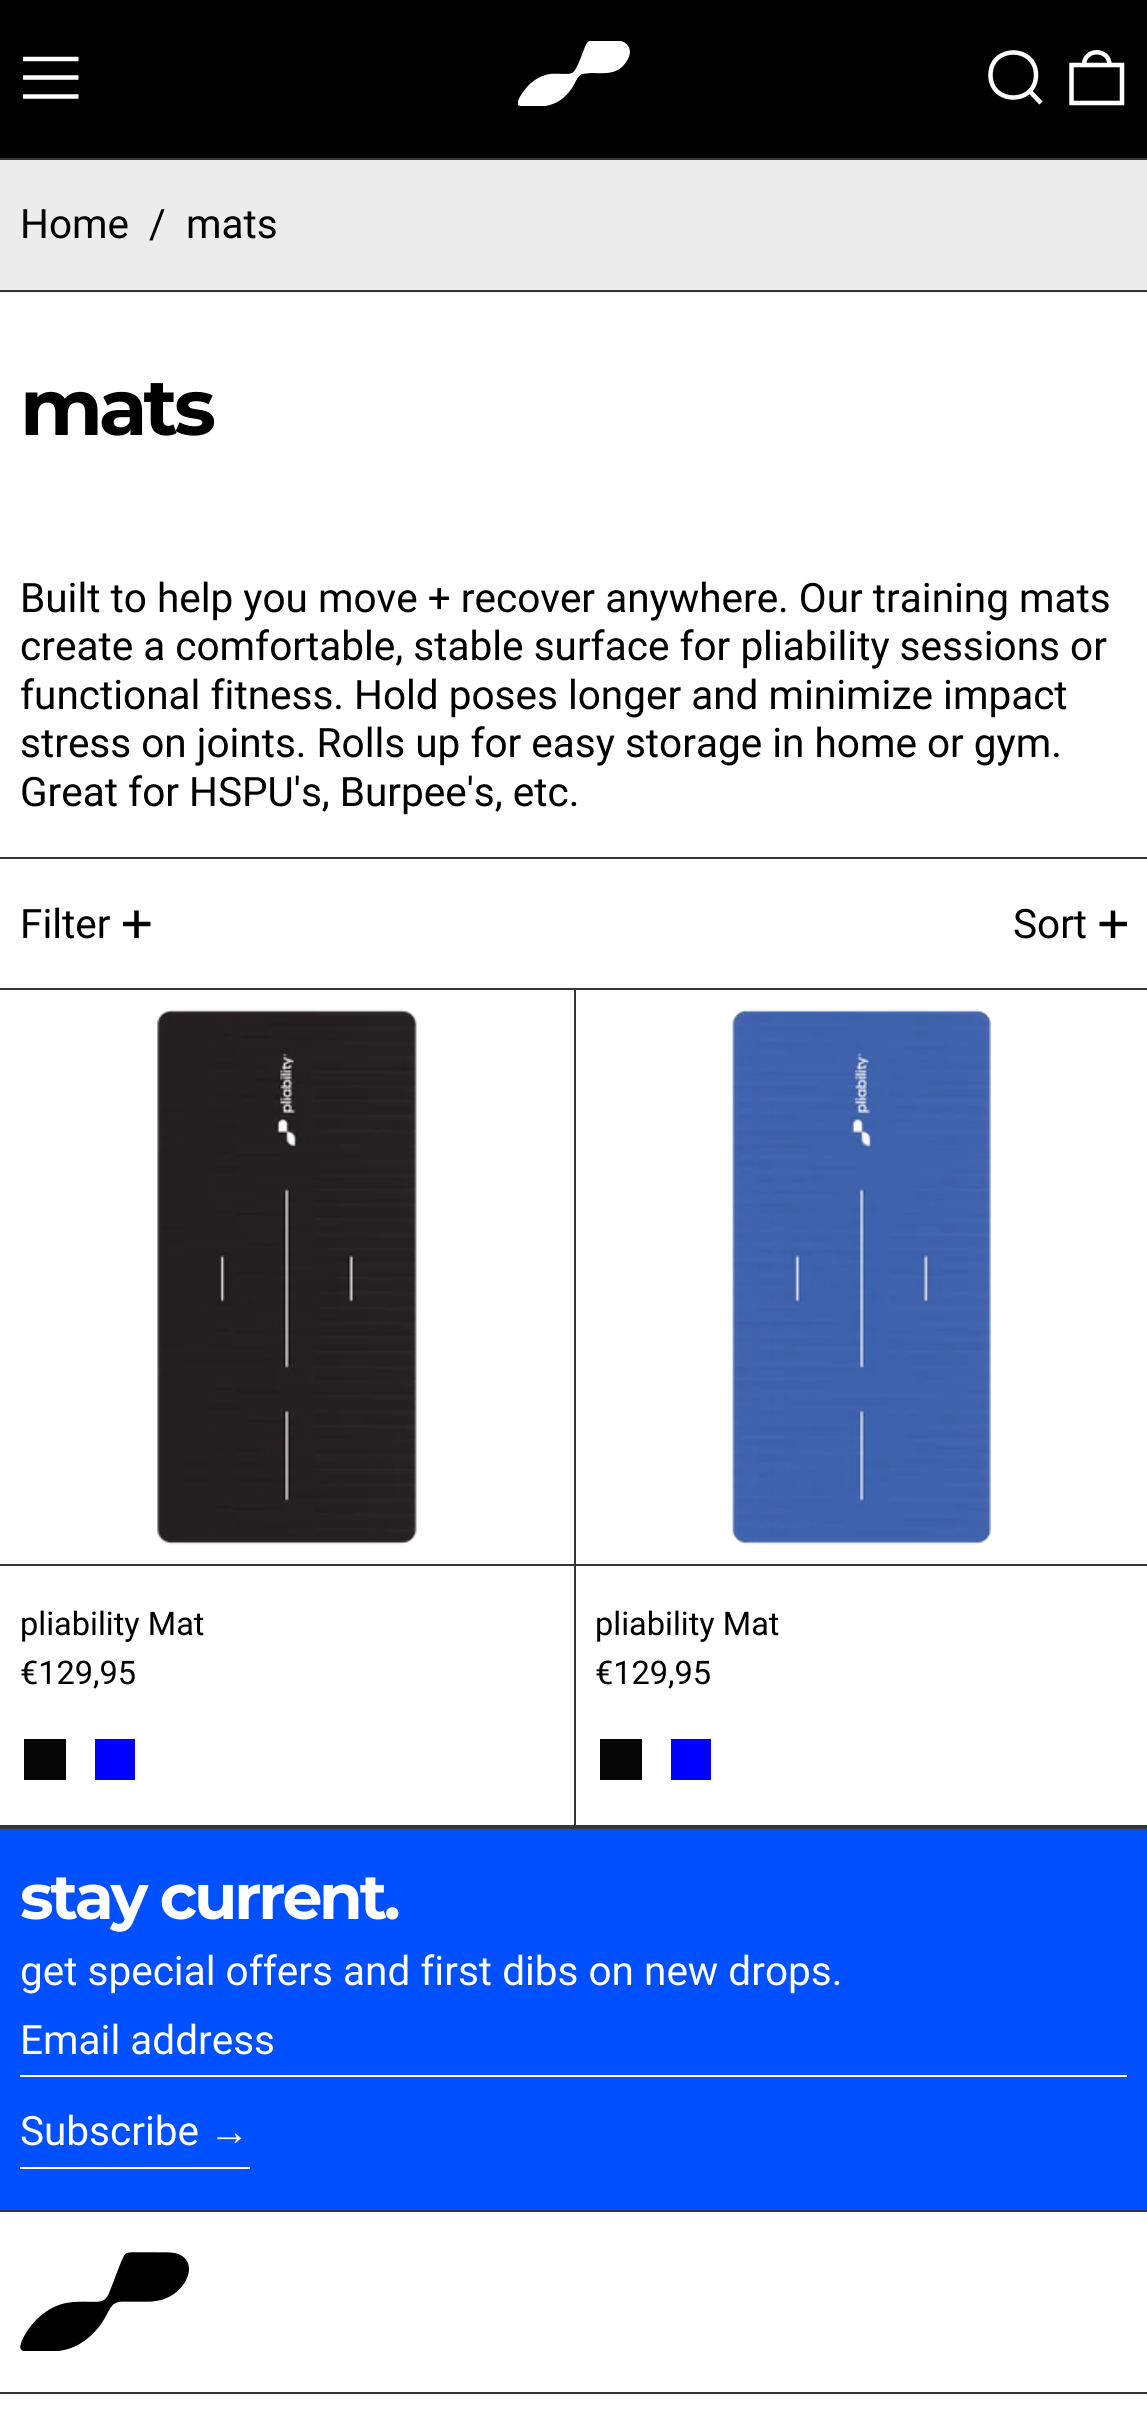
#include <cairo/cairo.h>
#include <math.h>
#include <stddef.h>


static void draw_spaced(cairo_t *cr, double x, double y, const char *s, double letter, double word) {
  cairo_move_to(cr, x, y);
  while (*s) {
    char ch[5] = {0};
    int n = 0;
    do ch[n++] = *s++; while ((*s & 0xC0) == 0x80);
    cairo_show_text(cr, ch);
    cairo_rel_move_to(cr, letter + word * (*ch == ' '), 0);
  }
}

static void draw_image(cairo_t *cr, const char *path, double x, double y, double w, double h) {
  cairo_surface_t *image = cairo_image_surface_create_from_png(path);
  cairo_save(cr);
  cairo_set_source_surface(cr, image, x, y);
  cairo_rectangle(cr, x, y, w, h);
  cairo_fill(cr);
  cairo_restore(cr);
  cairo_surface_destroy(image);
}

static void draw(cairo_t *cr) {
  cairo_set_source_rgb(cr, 236 / 255.0, 236 / 255.0, 236 / 255.0);
  cairo_paint(cr);
  cairo_set_source_rgb(cr, 0, 0, 0);
  cairo_rectangle(cr, 0, 0, 1147, 158);
  cairo_fill(cr);
  cairo_set_source_rgb(cr, 53 / 255.0, 53 / 255.0, 53 / 255.0);
  cairo_rectangle(cr, 0, 158, 1147, 2);
  cairo_fill(cr);
  cairo_new_path(cr);
  cairo_move_to(cr, 23, 59);
  cairo_line_to(cr, 78.5, 59);
  cairo_move_to(cr, 23, 77.5);
  cairo_line_to(cr, 78.5, 77.5);
  cairo_move_to(cr, 23, 96.5);
  cairo_line_to(cr, 78.5, 96.5);
  cairo_set_source_rgb(cr, 1, 1, 1);
  cairo_set_line_width(cr, 4.5);
  cairo_stroke(cr);
  cairo_save(cr);
  cairo_rectangle(cr, 518, 41, 112, 65);
  cairo_clip(cr);
  cairo_new_path(cr);
  cairo_move_to(cr, 628, 46);
  cairo_curve_to(cr, 626, 43, 624, 42, 621, 41);
  cairo_curve_to(cr, 617, 40, 594, 40, 589, 41);
  cairo_line_to(cr, 587, 43);
  cairo_curve_to(cr, 583, 49, 578, 70, 572, 73);
  cairo_curve_to(cr, 568, 75, 556, 73, 550, 74);
  cairo_curve_to(cr, 543, 75, 537, 78, 531, 83);
  cairo_curve_to(cr, 527, 86, 515, 101, 518, 105);
  cairo_line_to(cr, 520, 106);
  cairo_line_to(cr, 531, 107);
  cairo_curve_to(cr, 549, 107, 561, 104, 572, 88);
  cairo_curve_to(cr, 575, 84, 577, 76, 582, 74);
  cairo_line_to(cr, 591, 73);
  cairo_curve_to(cr, 601, 73, 613, 75, 622, 67);
  cairo_curve_to(cr, 627, 62, 633, 53, 628, 46);
  cairo_close_path(cr);
  cairo_fill(cr);
  cairo_restore(cr);
  cairo_new_path(cr);
  cairo_move_to(cr, 990.5, 75);
  cairo_curve_to(cr, 990.5, 105, 1036, 105, 1036, 75);
  cairo_curve_to(cr, 1036, 45, 990.5, 45, 990.5, 75);
  cairo_close_path(cr);
  cairo_move_to(cr, 1029.5, 91);
  cairo_line_to(cr, 1041, 103);
  cairo_stroke(cr);
  cairo_new_path(cr);
  cairo_move_to(cr, 1071.5, 65);
  cairo_line_to(cr, 1122, 65);
  cairo_line_to(cr, 1122, 103);
  cairo_line_to(cr, 1071.5, 103);
  cairo_close_path(cr);
  cairo_move_to(cr, 1109.5, 65);
  cairo_curve_to(cr, 1109.5, 48, 1084, 48, 1084, 65);
  cairo_stroke(cr);
  cairo_set_source_rgb(cr, 53 / 255.0, 53 / 255.0, 53 / 255.0);
  cairo_rectangle(cr, 0, 290, 1147, 2);
  cairo_fill(cr);
  cairo_set_source_rgb(cr, 1, 1, 1);
  cairo_rectangle(cr, 0, 859, 1147, 129);
  cairo_fill(cr);
  cairo_set_source_rgb(cr, 53 / 255.0, 53 / 255.0, 53 / 255.0);
  cairo_rectangle(cr, 0, 988, 1147, 841);
  cairo_fill(cr);
  cairo_rectangle(cr, 0, 857, 1147, 2);
  cairo_fill(cr);
  cairo_set_source_rgb(cr, 1, 1, 1);
  cairo_rectangle(cr, 0, 293, 1147, 564);
  cairo_fill(cr);
  cairo_new_path(cr);
  cairo_move_to(cr, 136.5, 910.5);
  cairo_line_to(cr, 136.5, 938);
  cairo_move_to(cr, 123, 924);
  cairo_line_to(cr, 150.5, 924);
  cairo_set_source_rgb(cr, 0, 0, 0);
  cairo_stroke(cr);
  cairo_new_path(cr);
  cairo_move_to(cr, 1113, 910.5);
  cairo_line_to(cr, 1113, 938);
  cairo_move_to(cr, 1099.5, 924);
  cairo_line_to(cr, 1127, 924);
  cairo_stroke(cr);
  cairo_set_source_rgb(cr, 1, 1, 1);
  cairo_rectangle(cr, 0, 990, 574, 835);
  cairo_fill(cr);
  cairo_set_source_rgb(cr, 53 / 255.0, 53 / 255.0, 53 / 255.0);
  cairo_rectangle(cr, 0, 1564, 574, 2);
  cairo_fill(cr);
  draw_image(cr, "images/1.png", 157, 1009, 260, 536);
  cairo_set_source_rgb(cr, 5 / 255.0, 5 / 255.0, 6 / 255.0);
  cairo_rectangle(cr, 24, 1739, 42, 41);
  cairo_fill(cr);
  cairo_set_source_rgb(cr, 0, 0, 1);
  cairo_rectangle(cr, 95, 1739, 40, 41);
  cairo_fill(cr);
  cairo_set_source_rgb(cr, 1, 1, 1);
  cairo_rectangle(cr, 576, 990, 571, 835);
  cairo_fill(cr);
  cairo_set_source_rgb(cr, 53 / 255.0, 53 / 255.0, 53 / 255.0);
  cairo_rectangle(cr, 576, 1564, 571, 2);
  cairo_fill(cr);
  draw_image(cr, "images/2.png", 732, 1009, 260, 536);
  cairo_set_source_rgb(cr, 5 / 255.0, 5 / 255.0, 6 / 255.0);
  cairo_rectangle(cr, 600, 1739, 42, 41);
  cairo_fill(cr);
  cairo_set_source_rgb(cr, 0, 0, 1);
  cairo_rectangle(cr, 671, 1739, 40, 41);
  cairo_fill(cr);
  cairo_set_source_rgb(cr, 0, 80 / 255.0, 1);
  cairo_rectangle(cr, 0, 1829, 1147, 381);
  cairo_fill(cr);
  cairo_set_source_rgb(cr, 53 / 255.0, 53 / 255.0, 53 / 255.0);
  cairo_rectangle(cr, 0, 2210, 1147, 2);
  cairo_fill(cr);
  cairo_set_source_rgb(cr, 1, 1, 1);
  cairo_rectangle(cr, 20, 2075, 1107, 2);
  cairo_fill(cr);
  cairo_rectangle(cr, 20, 2167, 230, 2);
  cairo_fill(cr);
  cairo_set_source_rgb(cr, 53 / 255.0, 53 / 255.0, 53 / 255.0);
  cairo_rectangle(cr, 0, 2392, 1147, 2);
  cairo_fill(cr);
  cairo_set_source_rgb(cr, 1, 1, 1);
  cairo_rectangle(cr, 0, 2212, 1147, 180);
  cairo_fill(cr);
  draw_image(cr, "images/3.png", 20, 2252, 169, 99);
  cairo_rectangle(cr, 0, 2394, 1147, 21);
  cairo_fill(cr);
  cairo_select_font_face(cr, "Roboto", CAIRO_FONT_SLANT_NORMAL, CAIRO_FONT_WEIGHT_NORMAL);
  cairo_set_font_size(cr, 40.5);
  cairo_set_source_rgb(cr, 0, 0, 0);
  cairo_move_to(cr, 20, 238);
  cairo_show_text(cr, "Home");
  cairo_move_to(cr, 149, 238);
  cairo_show_text(cr, "/");
  cairo_move_to(cr, 186, 238);
  cairo_show_text(cr, "mats");
  cairo_select_font_face(cr, "Montserrat", CAIRO_FONT_SLANT_NORMAL, CAIRO_FONT_WEIGHT_BOLD);
  cairo_set_font_size(cr, 79);
  draw_spaced(cr, 20, 435, "mats", -4, 0);
  cairo_select_font_face(cr, "Roboto", CAIRO_FONT_SLANT_NORMAL, CAIRO_FONT_WEIGHT_NORMAL);
  cairo_set_font_size(cr, 40.5);
  cairo_move_to(cr, 20, 612);
  cairo_show_text(cr, "Built to help you move + recover anywhere. Our training mats");
  cairo_move_to(cr, 20, 660);
  cairo_show_text(cr, "create a comfortable, stable surface for pliability sessions or");
  cairo_move_to(cr, 20, 709);
  cairo_show_text(cr, "functional fitness. Hold poses longer and minimize impact");
  cairo_move_to(cr, 20, 757);
  cairo_show_text(cr, "stress on joints. Rolls up for easy storage in home or gym.");
  cairo_move_to(cr, 20, 806);
  cairo_show_text(cr, "Great for HSPU's, Burpee's, etc.");
  cairo_move_to(cr, 20, 938);
  cairo_show_text(cr, "Filter");
  cairo_move_to(cr, 1013, 938);
  cairo_show_text(cr, "Sort");
  cairo_set_font_size(cr, 32.5);
  cairo_move_to(cr, 20, 1635);
  cairo_show_text(cr, "pliability Mat");
  cairo_move_to(cr, 20, 1684);
  cairo_show_text(cr, "€129,95");
  cairo_move_to(cr, 595, 1635);
  cairo_show_text(cr, "pliability Mat");
  cairo_move_to(cr, 595, 1684);
  cairo_show_text(cr, "€129,95");
  cairo_select_font_face(cr, "Montserrat", CAIRO_FONT_SLANT_NORMAL, CAIRO_FONT_WEIGHT_BOLD);
  cairo_set_font_size(cr, 63.25);
  cairo_set_source_rgb(cr, 1, 1, 1);
  draw_spaced(cr, 20, 1919, "stay current.", -3.2, 0);
  cairo_select_font_face(cr, "Roboto", CAIRO_FONT_SLANT_NORMAL, CAIRO_FONT_WEIGHT_NORMAL);
  cairo_set_font_size(cr, 40.5);
  cairo_move_to(cr, 20, 1985);
  cairo_show_text(cr, "get special offers and first dibs on new drops.");
  cairo_move_to(cr, 20, 2054);
  cairo_show_text(cr, "Email address");
  cairo_move_to(cr, 20, 2145);
  cairo_show_text(cr, "Subscribe");
  cairo_select_font_face(cr, "Liberation Sans", CAIRO_FONT_SLANT_NORMAL, CAIRO_FONT_WEIGHT_NORMAL);
  cairo_move_to(cr, 209, 2145);
  cairo_show_text(cr, "→");
}

int main(void) {
  cairo_surface_t *surface = cairo_image_surface_create(CAIRO_FORMAT_RGB24, 1147, 2415);
  cairo_t *cr = cairo_create(surface);
  cairo_font_options_t *options = cairo_font_options_create();
  cairo_font_options_set_hint_metrics(options, CAIRO_HINT_METRICS_OFF);
  cairo_font_options_set_hint_style(options, CAIRO_HINT_STYLE_NONE);
  cairo_set_font_options(cr, options);
  cairo_set_miter_limit(cr, 4);
  draw(cr);
  cairo_surface_write_to_png(surface, "out.png");
  cairo_font_options_destroy(options);
  cairo_destroy(cr);
  cairo_surface_destroy(surface);
  return 0;
}
